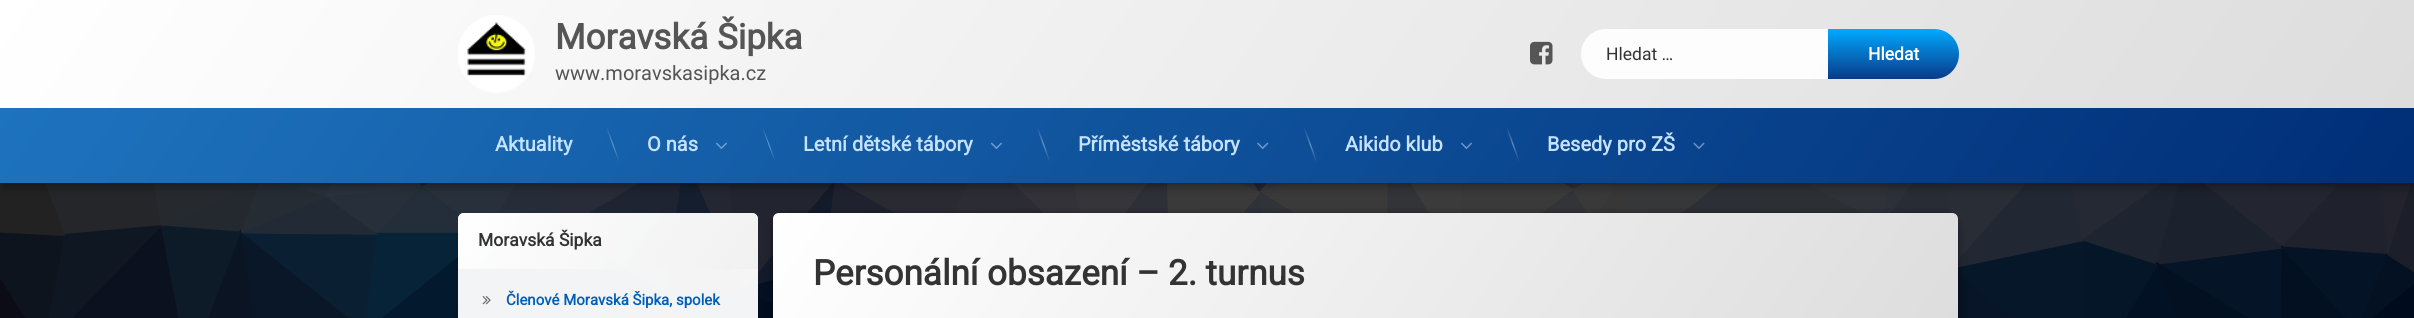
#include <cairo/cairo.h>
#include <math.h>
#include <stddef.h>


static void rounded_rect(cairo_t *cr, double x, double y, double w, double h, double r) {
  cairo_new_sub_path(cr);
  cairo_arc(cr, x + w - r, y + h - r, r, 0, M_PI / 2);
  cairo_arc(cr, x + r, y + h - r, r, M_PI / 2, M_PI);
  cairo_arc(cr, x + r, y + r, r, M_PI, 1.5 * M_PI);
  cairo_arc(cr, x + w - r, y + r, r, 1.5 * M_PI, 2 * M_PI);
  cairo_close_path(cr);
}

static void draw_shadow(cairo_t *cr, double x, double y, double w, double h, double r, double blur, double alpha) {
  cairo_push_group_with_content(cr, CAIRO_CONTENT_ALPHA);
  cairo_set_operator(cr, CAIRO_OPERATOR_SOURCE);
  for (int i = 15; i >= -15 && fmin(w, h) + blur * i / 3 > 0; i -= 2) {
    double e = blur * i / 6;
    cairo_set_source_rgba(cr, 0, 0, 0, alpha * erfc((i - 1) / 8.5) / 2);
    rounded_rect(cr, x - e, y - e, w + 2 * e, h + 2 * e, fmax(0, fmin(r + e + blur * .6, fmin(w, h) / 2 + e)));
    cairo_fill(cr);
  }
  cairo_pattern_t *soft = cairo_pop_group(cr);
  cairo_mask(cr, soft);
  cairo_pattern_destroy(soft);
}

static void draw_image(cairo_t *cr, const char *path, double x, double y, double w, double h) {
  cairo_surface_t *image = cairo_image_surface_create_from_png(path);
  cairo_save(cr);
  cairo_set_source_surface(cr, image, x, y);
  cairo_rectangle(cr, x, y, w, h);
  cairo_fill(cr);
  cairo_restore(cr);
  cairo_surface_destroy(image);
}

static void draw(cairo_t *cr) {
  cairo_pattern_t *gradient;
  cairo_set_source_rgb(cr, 1, 1, 1);
  cairo_paint(cr);
  draw_image(cr, "images/9.png", 0, 183, 2414, 135);
  cairo_set_source_rgb(cr, 0, 0, 0);
  draw_shadow(cr, 3, 3, 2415, 182, 0, 4.5, 0.3);
  draw_shadow(cr, 0, 0, 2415, 183, 0, 9.5, 0.2);
  gradient = cairo_pattern_create_linear(372, -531, 2043, 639);
  cairo_pattern_add_color_stop_rgba(gradient, 0, 1, 1, 1, 1);
  cairo_pattern_add_color_stop_rgba(gradient, 1, 221 / 255.0, 221 / 255.0, 221 / 255.0, 1);
  cairo_set_source(cr, gradient);
  cairo_pattern_destroy(gradient);
  cairo_rectangle(cr, 0, 0, 2414, 108);
  cairo_fill(cr);
  draw_image(cr, "images/1.png", 458, 15, 77, 78);
  draw_image(cr, "images/2.png", 1530, 41, 23, 24);
  cairo_set_source_rgba(cr, 1, 1, 1, 0.9);
  rounded_rect(cr, 1581, 29, 375, 50, 25);
  cairo_fill(cr);
  gradient = cairo_pattern_create_linear(1893, 29, 1893, 79);
  cairo_pattern_add_color_stop_rgba(gradient, 0, 0, 169 / 255.0, 1, 1);
  cairo_pattern_add_color_stop_rgba(gradient, 1, 9 / 255.0, 58 / 255.0, 137 / 255.0, 1);
  cairo_set_source(cr, gradient);
  cairo_pattern_destroy(gradient);
  cairo_new_path(cr);
  cairo_move_to(cr, 1828, 29);
  cairo_line_to(cr, 1934, 29);
  cairo_curve_to(cr, 1948, 29, 1959, 40, 1959, 54);
  cairo_curve_to(cr, 1959, 68, 1948, 79, 1934, 79);
  cairo_line_to(cr, 1828, 79);
  cairo_close_path(cr);
  cairo_fill(cr);
  gradient = cairo_pattern_create_linear(380, -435, 2035, 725);
  cairo_pattern_add_color_stop_rgba(gradient, 0, 30 / 255.0, 115 / 255.0, 190 / 255.0, 1);
  cairo_pattern_add_color_stop_rgba(gradient, 1, 0, 46 / 255.0, 119 / 255.0, 1);
  cairo_set_source(cr, gradient);
  cairo_pattern_destroy(gradient);
  cairo_rectangle(cr, 0, 108, 2414, 75);
  cairo_fill(cr);
  gradient = cairo_pattern_create_linear(607, 127, 619, 162);
  cairo_pattern_add_color_stop_rgba(gradient, 0, 22 / 255.0, 97 / 255.0, 172 / 255.0, 1);
  cairo_pattern_add_color_stop_rgba(gradient, 0.5, 106 / 255.0, 154 / 255.0, 202 / 255.0, 1);
  cairo_pattern_add_color_stop_rgba(gradient, 1, 22 / 255.0, 97 / 255.0, 172 / 255.0, 1);
  cairo_set_source(cr, gradient);
  cairo_pattern_destroy(gradient);
  cairo_new_path(cr);
  cairo_move_to(cr, 606, 127.5);
  cairo_line_to(cr, 607, 127);
  cairo_line_to(cr, 620, 162);
  cairo_line_to(cr, 619, 162.5);
  cairo_close_path(cr);
  cairo_fill(cr);
  draw_image(cr, "images/3.png", 715, 142, 12, 8);
  gradient = cairo_pattern_create_linear(763, 127, 775, 162);
  cairo_pattern_add_color_stop_rgba(gradient, 0, 20 / 255.0, 93 / 255.0, 167 / 255.0, 1);
  cairo_pattern_add_color_stop_rgba(gradient, 0.5, 105 / 255.0, 151 / 255.0, 199 / 255.0, 1);
  cairo_pattern_add_color_stop_rgba(gradient, 1, 20 / 255.0, 93 / 255.0, 167 / 255.0, 1);
  cairo_set_source(cr, gradient);
  cairo_pattern_destroy(gradient);
  cairo_new_path(cr);
  cairo_move_to(cr, 762, 127.5);
  cairo_line_to(cr, 763, 127);
  cairo_line_to(cr, 776, 162);
  cairo_line_to(cr, 775, 162.5);
  cairo_close_path(cr);
  cairo_fill(cr);
  draw_image(cr, "images/4.png", 990, 142, 12, 8);
  gradient = cairo_pattern_create_linear(1037, 127, 1050, 162);
  cairo_pattern_add_color_stop_rgba(gradient, 0, 17 / 255.0, 85 / 255.0, 159 / 255.0, 1);
  cairo_pattern_add_color_stop_rgba(gradient, 0.5, 103 / 255.0, 146 / 255.0, 194 / 255.0, 1);
  cairo_pattern_add_color_stop_rgba(gradient, 1, 17 / 255.0, 85 / 255.0, 159 / 255.0, 1);
  cairo_set_source(cr, gradient);
  cairo_pattern_destroy(gradient);
  cairo_new_path(cr);
  cairo_move_to(cr, 1036.5, 127.5);
  cairo_line_to(cr, 1038, 127);
  cairo_line_to(cr, 1050.5, 162);
  cairo_line_to(cr, 1049.5, 162.5);
  cairo_close_path(cr);
  cairo_fill(cr);
  draw_image(cr, "images/5.png", 1257, 142, 12, 8);
  gradient = cairo_pattern_create_linear(1304, 127, 1317, 162);
  cairo_pattern_add_color_stop_rgba(gradient, 0, 14 / 255.0, 78 / 255.0, 152 / 255.0, 1);
  cairo_pattern_add_color_stop_rgba(gradient, 0.5, 100 / 255.0, 142 / 255.0, 189 / 255.0, 1);
  cairo_pattern_add_color_stop_rgba(gradient, 1, 14 / 255.0, 78 / 255.0, 152 / 255.0, 1);
  cairo_set_source(cr, gradient);
  cairo_pattern_destroy(gradient);
  cairo_new_path(cr);
  cairo_move_to(cr, 1303.5, 127.5);
  cairo_line_to(cr, 1304.5, 127);
  cairo_line_to(cr, 1317.5, 162);
  cairo_line_to(cr, 1316, 162.5);
  cairo_close_path(cr);
  cairo_fill(cr);
  draw_image(cr, "images/6.png", 1460, 142, 12, 8);
  gradient = cairo_pattern_create_linear(1507, 127, 1519, 162);
  cairo_pattern_add_color_stop_rgba(gradient, 0, 11 / 255.0, 72 / 255.0, 146 / 255.0, 1);
  cairo_pattern_add_color_stop_rgba(gradient, 0.5, 99 / 255.0, 138 / 255.0, 185 / 255.0, 1);
  cairo_pattern_add_color_stop_rgba(gradient, 1, 11 / 255.0, 72 / 255.0, 146 / 255.0, 1);
  cairo_set_source(cr, gradient);
  cairo_pattern_destroy(gradient);
  cairo_new_path(cr);
  cairo_move_to(cr, 1506, 127.5);
  cairo_line_to(cr, 1507.5, 127);
  cairo_line_to(cr, 1520, 162);
  cairo_line_to(cr, 1519, 162.5);
  cairo_close_path(cr);
  cairo_fill(cr);
  draw_image(cr, "images/7.png", 1693, 142, 12, 7);
  cairo_set_source_rgba(cr, 1, 1, 1, 0.95);
  rounded_rect(cr, 458, 213, 300, 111, 6);
  cairo_fill(cr);
  gradient = cairo_pattern_create_linear(494, 161, 721, 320);
  cairo_pattern_add_color_stop_rgba(gradient, 0, 1, 1, 1, 1);
  cairo_pattern_add_color_stop_rgba(gradient, 1, 240 / 255.0, 240 / 255.0, 240 / 255.0, 0.75);
  cairo_set_source(cr, gradient);
  cairo_pattern_destroy(gradient);
  cairo_new_path(cr);
  cairo_move_to(cr, 464, 213);
  cairo_line_to(cr, 752, 213);
  cairo_curve_to(cr, 755.5, 213, 758, 215.5, 758, 219);
  cairo_line_to(cr, 758, 269);
  cairo_line_to(cr, 458, 269);
  cairo_line_to(cr, 458, 219);
  cairo_curve_to(cr, 458, 215.5, 460.5, 213, 464, 213);
  cairo_close_path(cr);
  cairo_fill(cr);
  draw_image(cr, "images/8.png", 482, 296, 9, 9);
  cairo_set_source_rgb(cr, 0, 0, 0);
  draw_shadow(cr, 773, 213, 1185, 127, 13, 3, 0.25);
  draw_shadow(cr, 773, 219, 1185, 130, 13, 6, 0.25);
  gradient = cairo_pattern_create_linear(939, -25, 1791, 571);
  cairo_pattern_add_color_stop_rgba(gradient, 0, 1, 1, 1, 1);
  cairo_pattern_add_color_stop_rgba(gradient, 1, 221 / 255.0, 221 / 255.0, 221 / 255.0, 1);
  cairo_set_source(cr, gradient);
  cairo_pattern_destroy(gradient);
  cairo_new_path(cr);
  cairo_move_to(cr, 779, 213);
  cairo_line_to(cr, 1952, 213);
  cairo_curve_to(cr, 1955.5, 213, 1958, 215.5, 1958, 219);
  cairo_line_to(cr, 1958, 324);
  cairo_line_to(cr, 773, 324);
  cairo_line_to(cr, 773, 219);
  cairo_curve_to(cr, 773, 215.5, 775.5, 213, 779, 213);
  cairo_close_path(cr);
  cairo_fill(cr);
  cairo_select_font_face(cr, "Roboto", CAIRO_FONT_SLANT_NORMAL, CAIRO_FONT_WEIGHT_BOLD);
  cairo_set_font_size(cr, 35);
  cairo_set_source_rgb(cr, 85 / 255.0, 85 / 255.0, 85 / 255.0);
  cairo_move_to(cr, 555, 49);
  cairo_show_text(cr, "Moravská Šipka");
  cairo_select_font_face(cr, "Roboto", CAIRO_FONT_SLANT_NORMAL, CAIRO_FONT_WEIGHT_NORMAL);
  cairo_set_font_size(cr, 20);
  cairo_move_to(cr, 555, 80);
  cairo_show_text(cr, "www.moravskasipka.cz");
  cairo_set_font_size(cr, 17.5);
  cairo_set_source_rgb(cr, 51 / 255.0, 51 / 255.0, 51 / 255.0);
  cairo_move_to(cr, 1606, 60);
  cairo_show_text(cr, "Hledat …");
  cairo_select_font_face(cr, "Roboto", CAIRO_FONT_SLANT_NORMAL, CAIRO_FONT_WEIGHT_BOLD);
  cairo_set_source_rgb(cr, 1, 1, 1);
  cairo_move_to(cr, 1868, 60);
  cairo_show_text(cr, "Hledat");
  cairo_set_font_size(cr, 20);
  cairo_set_source_rgb(cr, 197 / 255.0, 226 / 255.0, 1);
  cairo_move_to(cr, 495, 151);
  cairo_show_text(cr, "Aktuality");
  cairo_move_to(cr, 647, 151);
  cairo_show_text(cr, "O nás");
  cairo_move_to(cr, 803, 151);
  cairo_show_text(cr, "Letní dětské tábory");
  cairo_move_to(cr, 1078, 151);
  cairo_show_text(cr, "Příměstské tábory");
  cairo_move_to(cr, 1345, 151);
  cairo_show_text(cr, "Aikido klub");
  cairo_move_to(cr, 1547, 151);
  cairo_show_text(cr, "Besedy pro ZŠ");
  cairo_set_font_size(cr, 17.5);
  cairo_set_source_rgb(cr, 51 / 255.0, 51 / 255.0, 51 / 255.0);
  cairo_move_to(cr, 478, 246);
  cairo_show_text(cr, "Moravská Šipka");
  cairo_set_font_size(cr, 15);
  cairo_set_source_rgb(cr, 0, 94 / 255.0, 187 / 255.0);
  cairo_move_to(cr, 506, 305);
  cairo_show_text(cr, "Členové Moravská Šipka, spolek");
  cairo_set_font_size(cr, 35);
  cairo_set_source_rgb(cr, 51 / 255.0, 51 / 255.0, 51 / 255.0);
  cairo_move_to(cr, 813, 285);
  cairo_show_text(cr, "Personální obsazení – 2. turnus");
}

int main(void) {
  cairo_surface_t *surface = cairo_image_surface_create(CAIRO_FORMAT_RGB24, 2414, 318);
  cairo_t *cr = cairo_create(surface);
  cairo_font_options_t *options = cairo_font_options_create();
  cairo_font_options_set_hint_metrics(options, CAIRO_HINT_METRICS_OFF);
  cairo_font_options_set_hint_style(options, CAIRO_HINT_STYLE_NONE);
  cairo_set_font_options(cr, options);
  cairo_set_miter_limit(cr, 4);
  draw(cr);
  cairo_surface_write_to_png(surface, "out.png");
  cairo_font_options_destroy(options);
  cairo_destroy(cr);
  cairo_surface_destroy(surface);
  return 0;
}
